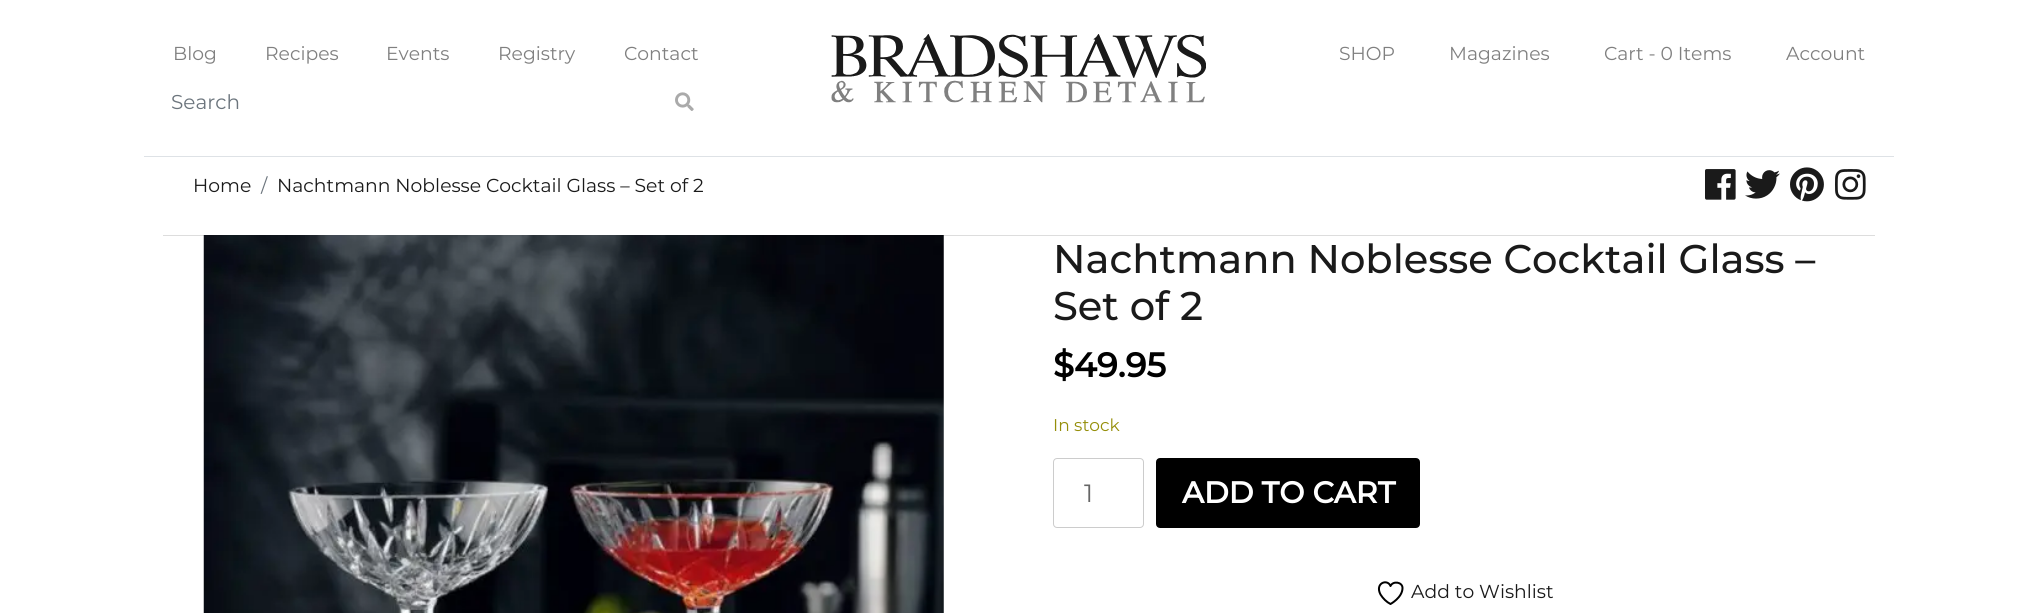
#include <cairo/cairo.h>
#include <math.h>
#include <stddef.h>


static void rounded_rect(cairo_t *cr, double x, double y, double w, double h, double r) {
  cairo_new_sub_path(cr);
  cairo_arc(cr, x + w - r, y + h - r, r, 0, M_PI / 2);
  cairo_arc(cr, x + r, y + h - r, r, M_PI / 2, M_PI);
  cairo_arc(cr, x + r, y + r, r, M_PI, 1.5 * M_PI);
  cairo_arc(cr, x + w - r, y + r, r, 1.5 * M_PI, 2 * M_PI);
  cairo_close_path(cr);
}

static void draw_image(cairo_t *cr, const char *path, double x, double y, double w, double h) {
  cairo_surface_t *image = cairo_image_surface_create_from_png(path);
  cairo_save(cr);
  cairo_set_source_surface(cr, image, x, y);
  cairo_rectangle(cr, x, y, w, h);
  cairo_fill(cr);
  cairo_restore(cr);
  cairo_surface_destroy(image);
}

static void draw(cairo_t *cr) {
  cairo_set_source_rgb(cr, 1, 1, 1);
  cairo_paint(cr);
  cairo_set_source_rgb(cr, 222 / 255.0, 226 / 255.0, 230 / 255.0);
  cairo_rectangle(cr, 144, 156, 1750, 1);
  cairo_fill(cr);
  draw_image(cr, "images/1.png", 675, 92, 19, 19);
  draw_image(cr, "images/2.png", 831, 34, 375, 69);
  draw_image(cr, "images/3.png", 1705, 169, 31, 31);
  draw_image(cr, "images/4.png", 1745, 170, 35, 29);
  draw_image(cr, "images/5.png", 1790, 167, 34, 35);
  draw_image(cr, "images/6.png", 1835, 169, 31, 31);
  cairo_set_source_rgb(cr, 221 / 255.0, 221 / 255.0, 221 / 255.0);
  cairo_rectangle(cr, 163, 235, 1712, 1);
  cairo_fill(cr);
  draw_image(cr, "images/7.png", 203, 235, 741, 378);
  rounded_rect(cr, 1053.5, 458.5, 90, 69, 3.5);
  cairo_set_source_rgb(cr, 204 / 255.0, 204 / 255.0, 204 / 255.0);
  cairo_set_line_width(cr, 1);
  cairo_stroke(cr);
  cairo_set_source_rgb(cr, 0, 0, 0);
  rounded_rect(cr, 1157.5, 459.5, 261, 67, 2.5);
  cairo_fill_preserve(cr);
  cairo_set_line_width(cr, 3);
  cairo_stroke(cr);
  cairo_new_path(cr);
  cairo_move_to(cr, 1402.5, 588);
  cairo_curve_to(cr, 1402.5, 582, 1393, 580.5, 1390.5, 586);
  cairo_curve_to(cr, 1387.5, 578.5, 1374.5, 583, 1380.5, 594.5);
  cairo_curve_to(cr, 1383, 598.5, 1386.5, 602, 1390.5, 604);
  cairo_curve_to(cr, 1390.5, 604, 1402.5, 597.5, 1402.5, 588);
  cairo_close_path(cr);
  cairo_set_line_width(cr, 2);
  cairo_set_line_cap(cr, CAIRO_LINE_CAP_ROUND);
  cairo_set_line_join(cr, CAIRO_LINE_JOIN_ROUND);
  cairo_stroke(cr);
  cairo_select_font_face(cr, "Montserrat", CAIRO_FONT_SLANT_NORMAL, CAIRO_FONT_WEIGHT_NORMAL);
  cairo_set_font_size(cr, 18.75);
  cairo_set_source_rgb(cr, 128 / 255.0, 128 / 255.0, 128 / 255.0);
  cairo_move_to(cr, 173, 60);
  cairo_show_text(cr, "Blog");
  cairo_move_to(cr, 265, 60);
  cairo_show_text(cr, "Recipes");
  cairo_move_to(cr, 386, 60);
  cairo_show_text(cr, "Events");
  cairo_move_to(cr, 498, 60);
  cairo_show_text(cr, "Registry");
  cairo_move_to(cr, 624, 60);
  cairo_show_text(cr, "Contact");
  cairo_set_font_size(cr, 20);
  cairo_set_source_rgb(cr, 108 / 255.0, 117 / 255.0, 125 / 255.0);
  cairo_move_to(cr, 171, 109);
  cairo_show_text(cr, "Search");
  cairo_set_font_size(cr, 18.75);
  cairo_set_source_rgb(cr, 128 / 255.0, 128 / 255.0, 128 / 255.0);
  cairo_move_to(cr, 1339, 60);
  cairo_show_text(cr, "SHOP");
  cairo_move_to(cr, 1449, 60);
  cairo_show_text(cr, "Magazines");
  cairo_move_to(cr, 1604, 60);
  cairo_show_text(cr, "Cart - 0 Items");
  cairo_move_to(cr, 1786, 60);
  cairo_show_text(cr, "Account");
  cairo_set_source_rgb(cr, 26 / 255.0, 26 / 255.0, 26 / 255.0);
  cairo_move_to(cr, 193, 192);
  cairo_show_text(cr, "Home");
  cairo_set_source_rgb(cr, 108 / 255.0, 117 / 255.0, 125 / 255.0);
  cairo_move_to(cr, 261, 192);
  cairo_show_text(cr, "/");
  cairo_set_source_rgb(cr, 26 / 255.0, 26 / 255.0, 26 / 255.0);
  cairo_move_to(cr, 277, 192);
  cairo_show_text(cr, "Nachtmann Noblesse Cocktail Glass – Set of 2");
  cairo_select_font_face(cr, "Montserrat Medium", CAIRO_FONT_SLANT_NORMAL, CAIRO_FONT_WEIGHT_NORMAL);
  cairo_set_font_size(cr, 40);
  cairo_move_to(cr, 1053, 273);
  cairo_show_text(cr, "Nachtmann Noblesse Cocktail Glass –");
  cairo_move_to(cr, 1053, 320);
  cairo_show_text(cr, "Set of 2");
  cairo_select_font_face(cr, "Montserrat", CAIRO_FONT_SLANT_NORMAL, CAIRO_FONT_WEIGHT_BOLD);
  cairo_set_font_size(cr, 34);
  cairo_set_source_rgb(cr, 0, 0, 0);
  cairo_move_to(cr, 1053, 377);
  cairo_show_text(cr, "$49.95");
  cairo_select_font_face(cr, "Montserrat", CAIRO_FONT_SLANT_NORMAL, CAIRO_FONT_WEIGHT_NORMAL);
  cairo_set_font_size(cr, 17);
  cairo_set_source_rgb(cr, 149 / 255.0, 142 / 255.0, 9 / 255.0);
  cairo_move_to(cr, 1053, 431);
  cairo_show_text(cr, "In stock");
  cairo_set_font_size(cr, 25);
  cairo_set_source_rgb(cr, 102 / 255.0, 102 / 255.0, 102 / 255.0);
  cairo_move_to(cr, 1084, 502);
  cairo_show_text(cr, "1");
  cairo_select_font_face(cr, "Montserrat", CAIRO_FONT_SLANT_NORMAL, CAIRO_FONT_WEIGHT_BOLD);
  cairo_set_font_size(cr, 30);
  cairo_set_source_rgb(cr, 1, 1, 1);
  cairo_move_to(cr, 1182, 503);
  cairo_show_text(cr, "ADD TO CART");
  cairo_select_font_face(cr, "Montserrat", CAIRO_FONT_SLANT_NORMAL, CAIRO_FONT_WEIGHT_NORMAL);
  cairo_set_font_size(cr, 18.75);
  cairo_set_source_rgb(cr, 26 / 255.0, 26 / 255.0, 26 / 255.0);
  cairo_move_to(cr, 1411, 598);
  cairo_show_text(cr, "Add to Wishlist");
}

int main(void) {
  cairo_surface_t *surface = cairo_image_surface_create(CAIRO_FORMAT_RGB24, 2037, 613);
  cairo_t *cr = cairo_create(surface);
  cairo_font_options_t *options = cairo_font_options_create();
  cairo_font_options_set_hint_metrics(options, CAIRO_HINT_METRICS_OFF);
  cairo_font_options_set_hint_style(options, CAIRO_HINT_STYLE_NONE);
  cairo_set_font_options(cr, options);
  cairo_set_miter_limit(cr, 4);
  draw(cr);
  cairo_surface_write_to_png(surface, "out.png");
  cairo_font_options_destroy(options);
  cairo_destroy(cr);
  cairo_surface_destroy(surface);
  return 0;
}
